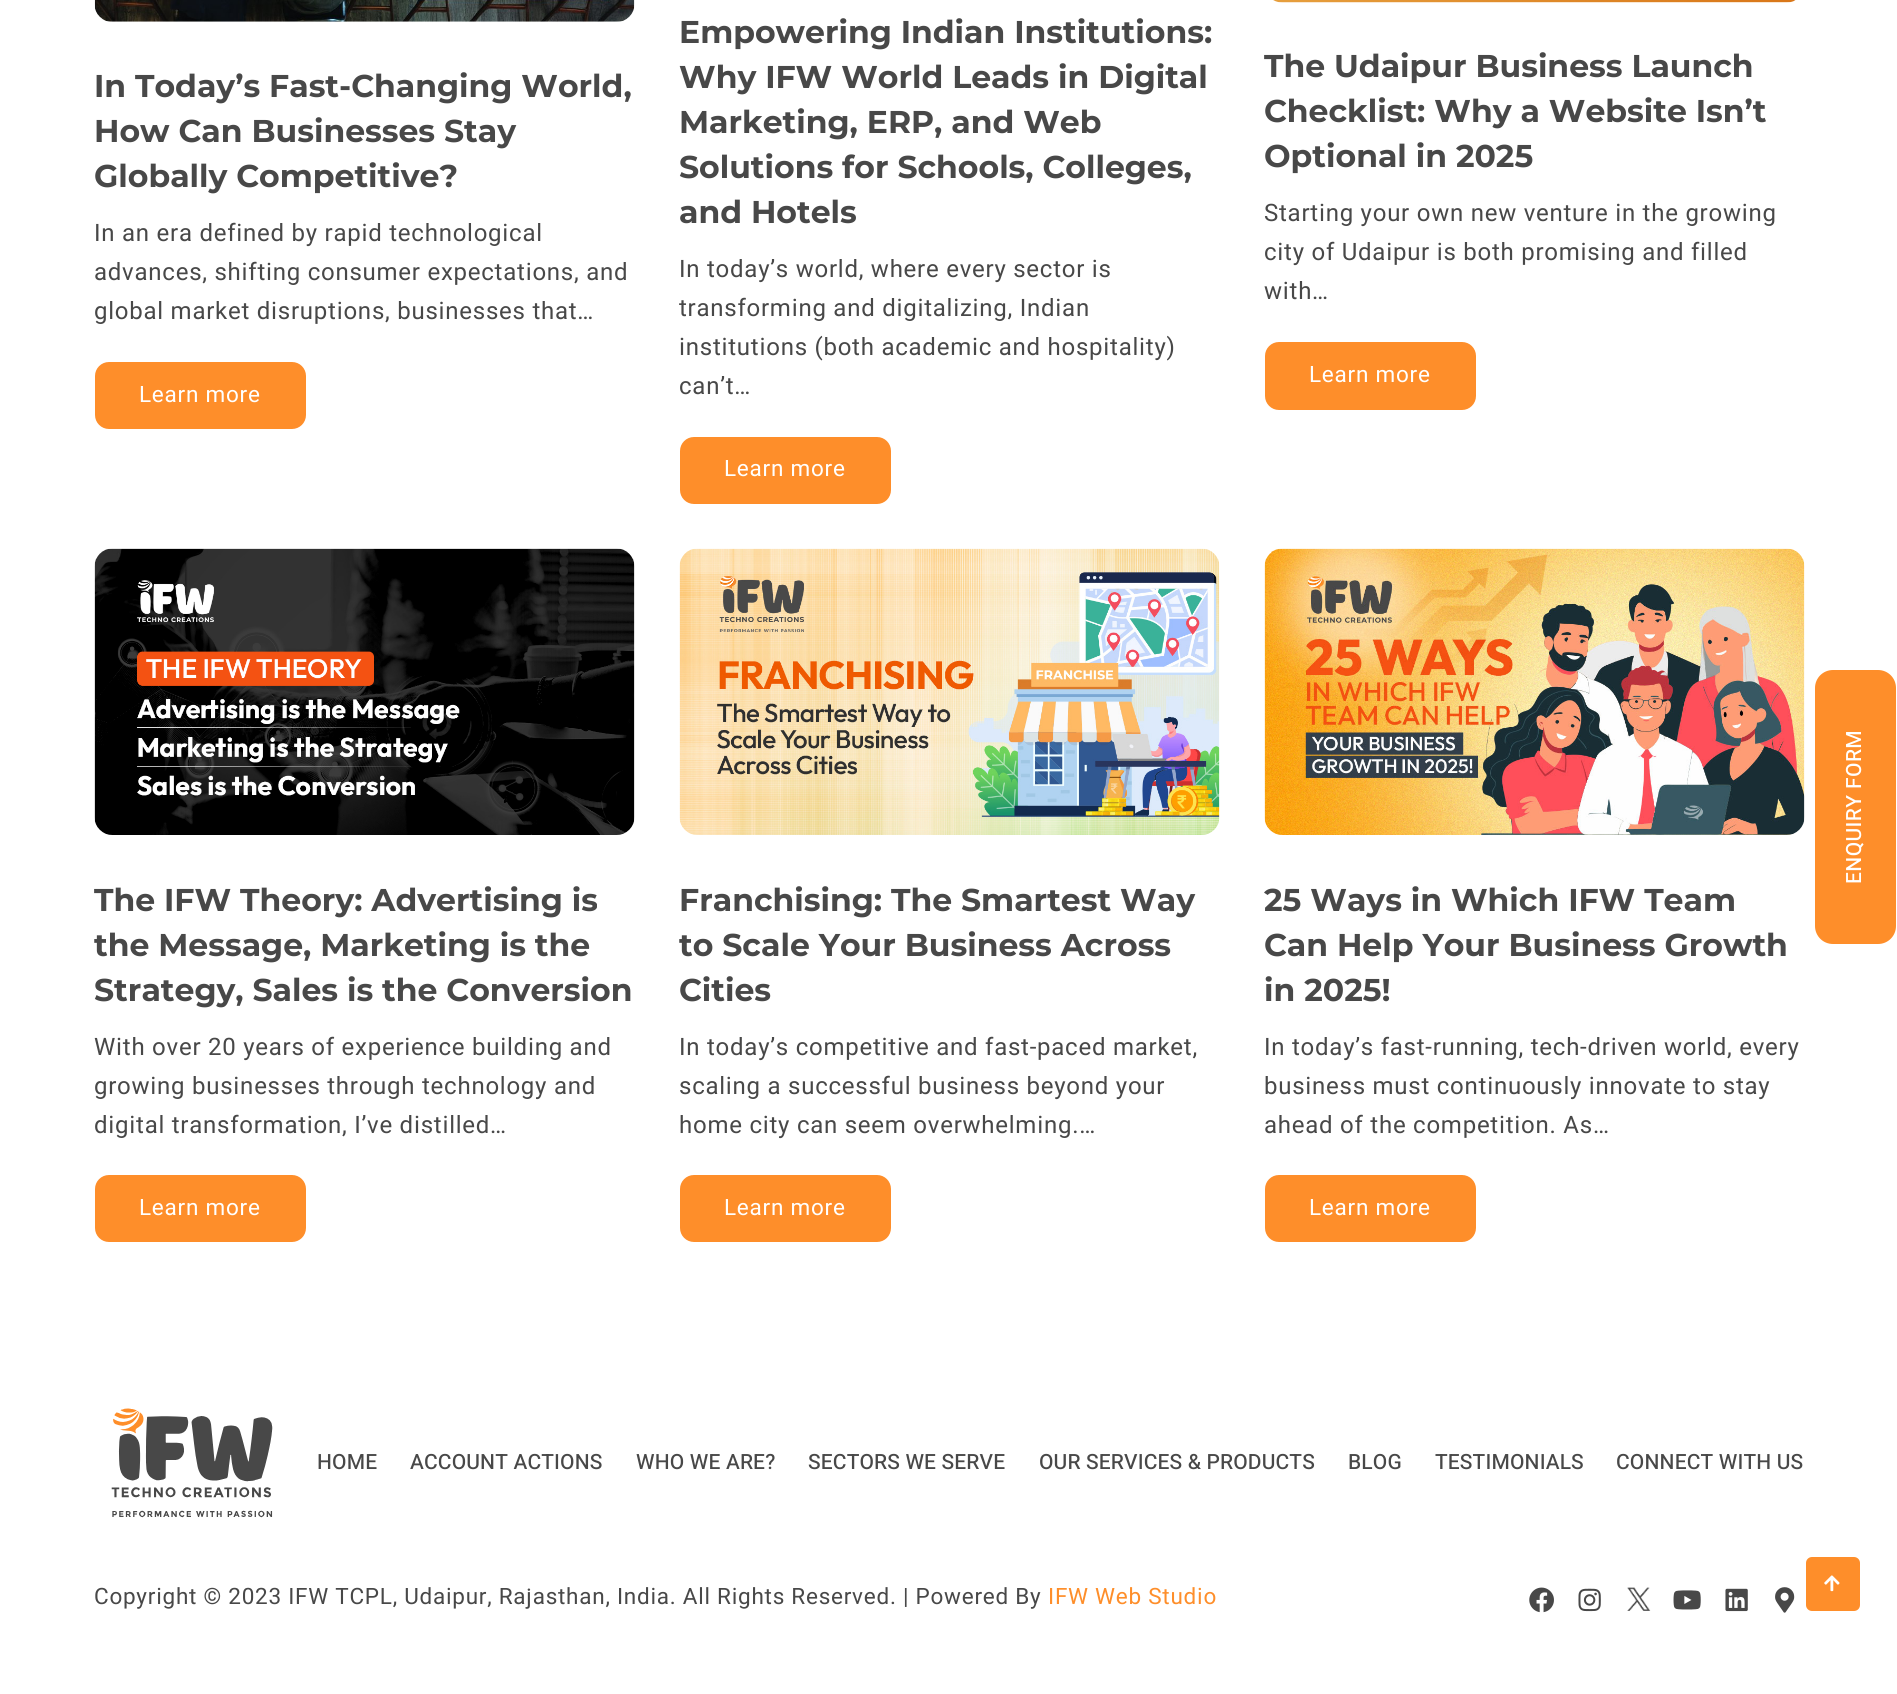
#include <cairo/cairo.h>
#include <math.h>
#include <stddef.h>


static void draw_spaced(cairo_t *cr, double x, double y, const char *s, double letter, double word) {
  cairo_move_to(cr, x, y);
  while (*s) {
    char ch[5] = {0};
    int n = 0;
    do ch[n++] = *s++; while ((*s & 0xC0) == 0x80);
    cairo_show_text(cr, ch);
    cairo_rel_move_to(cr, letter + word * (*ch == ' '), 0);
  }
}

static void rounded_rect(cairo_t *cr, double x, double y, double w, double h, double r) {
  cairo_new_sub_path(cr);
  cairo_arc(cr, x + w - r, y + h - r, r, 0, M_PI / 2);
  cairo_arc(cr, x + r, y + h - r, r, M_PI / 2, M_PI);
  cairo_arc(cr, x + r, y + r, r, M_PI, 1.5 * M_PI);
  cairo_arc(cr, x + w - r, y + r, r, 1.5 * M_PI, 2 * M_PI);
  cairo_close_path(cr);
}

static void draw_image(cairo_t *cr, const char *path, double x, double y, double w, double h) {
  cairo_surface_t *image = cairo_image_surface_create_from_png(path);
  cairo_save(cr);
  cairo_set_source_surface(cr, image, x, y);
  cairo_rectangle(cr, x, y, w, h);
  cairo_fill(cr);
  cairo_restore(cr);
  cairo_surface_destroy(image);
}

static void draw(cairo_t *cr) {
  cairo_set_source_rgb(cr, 1, 1, 1);
  cairo_paint(cr);
  draw_image(cr, "images/1.png", 94, 0, 541, 22);
  cairo_set_source_rgb(cr, 254 / 255.0, 142 / 255.0, 42 / 255.0);
  rounded_rect(cr, 95, 362, 211, 67, 14);
  cairo_fill(cr);
  rounded_rect(cr, 680, 437, 211, 67, 14);
  cairo_fill(cr);
  draw_image(cr, "images/2.png", 1273, 0, 523, 3);
  rounded_rect(cr, 1265, 342, 211, 68, 14);
  cairo_fill(cr);
  draw_image(cr, "images/3.png", 94, 548, 541, 287);
  rounded_rect(cr, 95, 1175, 211, 67, 14);
  cairo_fill(cr);
  draw_image(cr, "images/4.png", 679, 548, 541, 287);
  rounded_rect(cr, 680, 1175, 211, 67, 14);
  cairo_fill(cr);
  draw_image(cr, "images/5.png", 1264, 548, 541, 287);
  rounded_rect(cr, 1265, 1175, 211, 67, 14);
  cairo_fill(cr);
  cairo_new_path(cr);
  cairo_move_to(cr, 1815, 926);
  cairo_line_to(cr, 1815, 688);
  cairo_curve_to(cr, 1815, 678, 1823, 670, 1833, 670);
  cairo_line_to(cr, 1878, 670);
  cairo_curve_to(cr, 1888, 670, 1896, 678, 1896, 688);
  cairo_line_to(cr, 1896, 926);
  cairo_curve_to(cr, 1896, 936, 1888, 944, 1878, 944);
  cairo_line_to(cr, 1833, 944);
  cairo_curve_to(cr, 1823, 944, 1815, 936, 1815, 926);
  cairo_close_path(cr);
  cairo_fill(cr);
  draw_image(cr, "images/6.png", 1529, 1587, 25, 26);
  draw_image(cr, "images/7.png", 1578, 1588, 23, 24);
  draw_image(cr, "images/8.png", 1627, 1587, 24, 24);
  draw_image(cr, "images/9.png", 1673, 1590, 28, 20);
  draw_image(cr, "images/10.png", 1725, 1588, 23, 24);
  draw_image(cr, "images/11.png", 1775, 1587, 20, 26);
  rounded_rect(cr, 1806, 1557, 54, 54, 6);
  cairo_fill(cr);
  draw_image(cr, "images/12.png", 1824, 1575, 16, 17);
  draw_image(cr, "images/13.png", 111, 1408, 162, 110);
  cairo_select_font_face(cr, "Montserrat", CAIRO_FONT_SLANT_NORMAL, CAIRO_FONT_WEIGHT_BOLD);
  cairo_set_font_size(cr, 31.5);
  cairo_set_source_rgb(cr, 72 / 255.0, 72 / 255.0, 72 / 255.0);
  cairo_move_to(cr, 94, 97);
  cairo_show_text(cr, "In Today’s Fast-Changing World,");
  cairo_move_to(cr, 94, 142);
  cairo_show_text(cr, "How Can Businesses Stay");
  cairo_move_to(cr, 94, 187);
  cairo_show_text(cr, "Globally Competitive?");
  cairo_select_font_face(cr, "Heebo", CAIRO_FONT_SLANT_NORMAL, CAIRO_FONT_WEIGHT_NORMAL);
  cairo_set_font_size(cr, 24);
  draw_spaced(cr, 94, 241, "In an era defined by rapid technological", 0.75, 0);
  draw_spaced(cr, 94, 280, "advances, shifting consumer expectations, and", 0.75, 0);
  draw_spaced(cr, 94, 319, "global market disruptions, businesses that…", 0.75, 0);
  cairo_set_font_size(cr, 22.5);
  cairo_set_source_rgb(cr, 1, 1, 1);
  draw_spaced(cr, 139, 402, "Learn more", 0.75, 0);
  cairo_select_font_face(cr, "Montserrat", CAIRO_FONT_SLANT_NORMAL, CAIRO_FONT_WEIGHT_BOLD);
  cairo_set_font_size(cr, 31.5);
  cairo_set_source_rgb(cr, 72 / 255.0, 72 / 255.0, 72 / 255.0);
  cairo_move_to(cr, 679, 43);
  cairo_show_text(cr, "Empowering Indian Institutions:");
  cairo_move_to(cr, 679, 88);
  cairo_show_text(cr, "Why IFW World Leads in Digital");
  cairo_move_to(cr, 679, 133);
  cairo_show_text(cr, "Marketing, ERP, and Web");
  cairo_move_to(cr, 679, 178);
  cairo_show_text(cr, "Solutions for Schools, Colleges,");
  cairo_move_to(cr, 679, 223);
  cairo_show_text(cr, "and Hotels");
  cairo_select_font_face(cr, "Heebo", CAIRO_FONT_SLANT_NORMAL, CAIRO_FONT_WEIGHT_NORMAL);
  cairo_set_font_size(cr, 24);
  draw_spaced(cr, 679, 277, "In today’s world, where every sector is", 0.75, 0);
  draw_spaced(cr, 679, 316, "transforming and digitalizing, Indian", 0.75, 0);
  draw_spaced(cr, 679, 355, "institutions (both academic and hospitality)", 0.75, 0);
  draw_spaced(cr, 679, 394, "can’t…", 0.75, 0);
  cairo_set_font_size(cr, 22.5);
  cairo_set_source_rgb(cr, 1, 1, 1);
  draw_spaced(cr, 724, 476, "Learn more", 0.75, 0);
  cairo_select_font_face(cr, "Montserrat", CAIRO_FONT_SLANT_NORMAL, CAIRO_FONT_WEIGHT_BOLD);
  cairo_set_font_size(cr, 31.5);
  cairo_set_source_rgb(cr, 72 / 255.0, 72 / 255.0, 72 / 255.0);
  cairo_move_to(cr, 1264, 77);
  cairo_show_text(cr, "The Udaipur Business Launch");
  cairo_move_to(cr, 1264, 122);
  cairo_show_text(cr, "Checklist: Why a Website Isn’t");
  cairo_move_to(cr, 1264, 167);
  cairo_show_text(cr, "Optional in 2025");
  cairo_select_font_face(cr, "Heebo", CAIRO_FONT_SLANT_NORMAL, CAIRO_FONT_WEIGHT_NORMAL);
  cairo_set_font_size(cr, 24);
  draw_spaced(cr, 1264, 221, "Starting your own new venture in the growing", 0.75, 0);
  draw_spaced(cr, 1264, 260, "city of Udaipur is both promising and filled", 0.75, 0);
  draw_spaced(cr, 1264, 299, "with…", 0.75, 0);
  cairo_set_font_size(cr, 22.5);
  cairo_set_source_rgb(cr, 1, 1, 1);
  draw_spaced(cr, 1309, 382, "Learn more", 0.75, 0);
  cairo_select_font_face(cr, "Montserrat", CAIRO_FONT_SLANT_NORMAL, CAIRO_FONT_WEIGHT_BOLD);
  cairo_set_font_size(cr, 31.5);
  cairo_set_source_rgb(cr, 72 / 255.0, 72 / 255.0, 72 / 255.0);
  cairo_move_to(cr, 94, 911);
  cairo_show_text(cr, "The IFW Theory: Advertising is");
  cairo_move_to(cr, 94, 956);
  cairo_show_text(cr, "the Message, Marketing is the");
  cairo_move_to(cr, 94, 1001);
  cairo_show_text(cr, "Strategy, Sales is the Conversion");
  cairo_select_font_face(cr, "Heebo", CAIRO_FONT_SLANT_NORMAL, CAIRO_FONT_WEIGHT_NORMAL);
  cairo_set_font_size(cr, 24);
  draw_spaced(cr, 94, 1055, "With over 20 years of experience building and", 0.75, 0);
  draw_spaced(cr, 94, 1094, "growing businesses through technology and", 0.75, 0);
  draw_spaced(cr, 94, 1133, "digital transformation, I’ve distilled…", 0.75, 0);
  cairo_set_font_size(cr, 22.5);
  cairo_set_source_rgb(cr, 1, 1, 1);
  draw_spaced(cr, 139, 1215, "Learn more", 0.75, 0);
  cairo_select_font_face(cr, "Montserrat", CAIRO_FONT_SLANT_NORMAL, CAIRO_FONT_WEIGHT_BOLD);
  cairo_set_font_size(cr, 31.5);
  cairo_set_source_rgb(cr, 72 / 255.0, 72 / 255.0, 72 / 255.0);
  cairo_move_to(cr, 679, 911);
  cairo_show_text(cr, "Franchising: The Smartest Way");
  cairo_move_to(cr, 679, 956);
  cairo_show_text(cr, "to Scale Your Business Across");
  cairo_move_to(cr, 679, 1001);
  cairo_show_text(cr, "Cities");
  cairo_select_font_face(cr, "Heebo", CAIRO_FONT_SLANT_NORMAL, CAIRO_FONT_WEIGHT_NORMAL);
  cairo_set_font_size(cr, 24);
  draw_spaced(cr, 679, 1055, "In today’s competitive and fast-paced market,", 0.75, 0);
  draw_spaced(cr, 679, 1094, "scaling a successful business beyond your", 0.75, 0);
  draw_spaced(cr, 679, 1133, "home city can seem overwhelming.…", 0.75, 0);
  cairo_set_font_size(cr, 22.5);
  cairo_set_source_rgb(cr, 1, 1, 1);
  draw_spaced(cr, 724, 1215, "Learn more", 0.75, 0);
  cairo_select_font_face(cr, "Montserrat", CAIRO_FONT_SLANT_NORMAL, CAIRO_FONT_WEIGHT_BOLD);
  cairo_set_font_size(cr, 31.5);
  cairo_set_source_rgb(cr, 72 / 255.0, 72 / 255.0, 72 / 255.0);
  cairo_move_to(cr, 1264, 911);
  cairo_show_text(cr, "25 Ways in Which IFW Team");
  cairo_move_to(cr, 1264, 956);
  cairo_show_text(cr, "Can Help Your Business Growth");
  cairo_move_to(cr, 1264, 1001);
  cairo_show_text(cr, "in 2025!");
  cairo_select_font_face(cr, "Heebo", CAIRO_FONT_SLANT_NORMAL, CAIRO_FONT_WEIGHT_NORMAL);
  cairo_set_font_size(cr, 24);
  draw_spaced(cr, 1264, 1055, "In today’s fast-running, tech-driven world, every", 0.75, 0);
  draw_spaced(cr, 1264, 1094, "business must continuously innovate to stay", 0.75, 0);
  draw_spaced(cr, 1264, 1133, "ahead of the competition. As…", 0.75, 0);
  cairo_set_font_size(cr, 22.5);
  cairo_set_source_rgb(cr, 1, 1, 1);
  draw_spaced(cr, 1309, 1215, "Learn more", 0.75, 0);
  cairo_select_font_face(cr, "Heebo Medium", CAIRO_FONT_SLANT_NORMAL, CAIRO_FONT_WEIGHT_NORMAL);
  cairo_set_font_size(cr, 21);
  cairo_save(cr);
  cairo_translate(cr, 1861, 884);
  cairo_rotate(cr, -90 * M_PI / 180);
  draw_spaced(cr, 0, 0, "ENQUIRY FORM", 0.4, 0);
  cairo_restore(cr);
  cairo_select_font_face(cr, "Heebo", CAIRO_FONT_SLANT_NORMAL, CAIRO_FONT_WEIGHT_NORMAL);
  cairo_set_font_size(cr, 22.5);
  cairo_set_source_rgb(cr, 72 / 255.0, 72 / 255.0, 72 / 255.0);
  draw_spaced(cr, 94, 1604, "Copyright © 2023 IFW TCPL, Udaipur, Rajasthan, India. All Rights Reserved. | Powered By", 0.75, 0);
  cairo_set_source_rgb(cr, 254 / 255.0, 142 / 255.0, 42 / 255.0);
  draw_spaced(cr, 1048, 1604, "IFW Web Studio", 0.75, 0);
  cairo_select_font_face(cr, "Heebo Medium", CAIRO_FONT_SLANT_NORMAL, CAIRO_FONT_WEIGHT_NORMAL);
  cairo_set_font_size(cr, 21);
  cairo_set_source_rgb(cr, 72 / 255.0, 72 / 255.0, 72 / 255.0);
  draw_spaced(cr, 317, 1469, "HOME", 0.15, 0);
  draw_spaced(cr, 410, 1469, "ACCOUNT ACTIONS", 0.15, 0);
  draw_spaced(cr, 636, 1469, "WHO WE ARE?", 0.15, 0);
  draw_spaced(cr, 808, 1469, "SECTORS WE SERVE", 0.15, 0);
  draw_spaced(cr, 1039, 1469, "OUR SERVICES & PRODUCTS", 0.15, 0);
  draw_spaced(cr, 1348, 1469, "BLOG", 0.15, 0);
  draw_spaced(cr, 1435, 1469, "TESTIMONIALS", 0.15, 0);
  draw_spaced(cr, 1616, 1469, "CONNECT WITH US", 0.15, 0);
}

int main(void) {
  cairo_surface_t *surface = cairo_image_surface_create(CAIRO_FORMAT_RGB24, 1897, 1694);
  cairo_t *cr = cairo_create(surface);
  cairo_font_options_t *options = cairo_font_options_create();
  cairo_font_options_set_hint_metrics(options, CAIRO_HINT_METRICS_OFF);
  cairo_font_options_set_hint_style(options, CAIRO_HINT_STYLE_NONE);
  cairo_set_font_options(cr, options);
  cairo_set_miter_limit(cr, 4);
  draw(cr);
  cairo_surface_write_to_png(surface, "out.png");
  cairo_font_options_destroy(options);
  cairo_destroy(cr);
  cairo_surface_destroy(surface);
  return 0;
}
